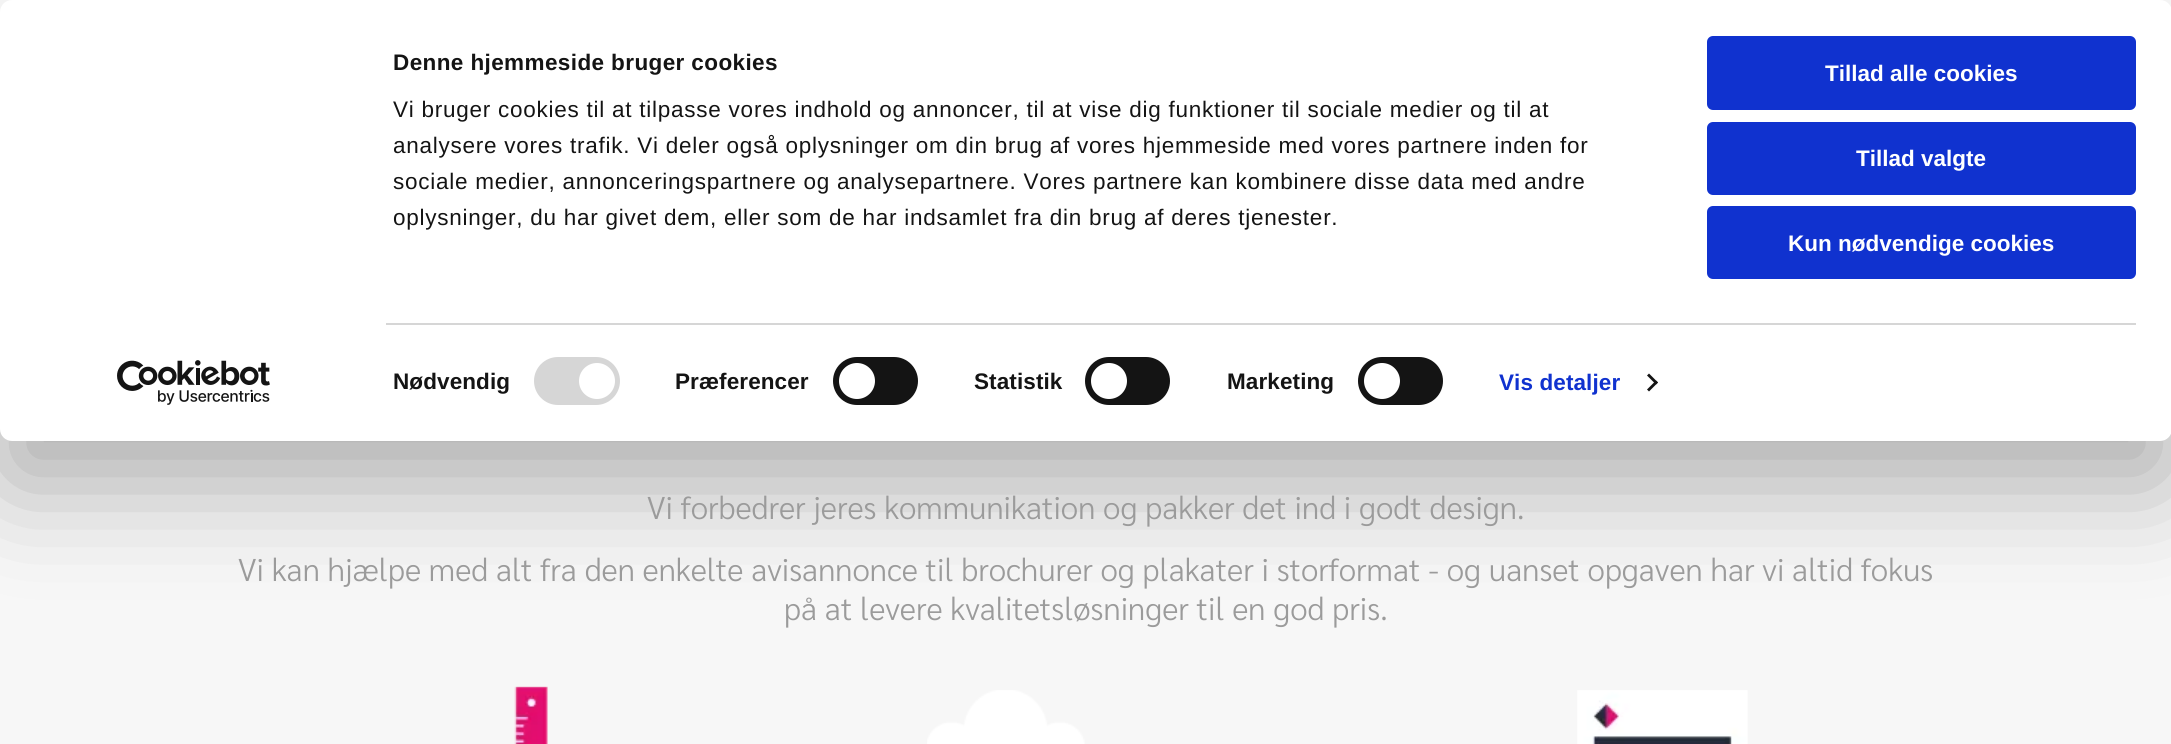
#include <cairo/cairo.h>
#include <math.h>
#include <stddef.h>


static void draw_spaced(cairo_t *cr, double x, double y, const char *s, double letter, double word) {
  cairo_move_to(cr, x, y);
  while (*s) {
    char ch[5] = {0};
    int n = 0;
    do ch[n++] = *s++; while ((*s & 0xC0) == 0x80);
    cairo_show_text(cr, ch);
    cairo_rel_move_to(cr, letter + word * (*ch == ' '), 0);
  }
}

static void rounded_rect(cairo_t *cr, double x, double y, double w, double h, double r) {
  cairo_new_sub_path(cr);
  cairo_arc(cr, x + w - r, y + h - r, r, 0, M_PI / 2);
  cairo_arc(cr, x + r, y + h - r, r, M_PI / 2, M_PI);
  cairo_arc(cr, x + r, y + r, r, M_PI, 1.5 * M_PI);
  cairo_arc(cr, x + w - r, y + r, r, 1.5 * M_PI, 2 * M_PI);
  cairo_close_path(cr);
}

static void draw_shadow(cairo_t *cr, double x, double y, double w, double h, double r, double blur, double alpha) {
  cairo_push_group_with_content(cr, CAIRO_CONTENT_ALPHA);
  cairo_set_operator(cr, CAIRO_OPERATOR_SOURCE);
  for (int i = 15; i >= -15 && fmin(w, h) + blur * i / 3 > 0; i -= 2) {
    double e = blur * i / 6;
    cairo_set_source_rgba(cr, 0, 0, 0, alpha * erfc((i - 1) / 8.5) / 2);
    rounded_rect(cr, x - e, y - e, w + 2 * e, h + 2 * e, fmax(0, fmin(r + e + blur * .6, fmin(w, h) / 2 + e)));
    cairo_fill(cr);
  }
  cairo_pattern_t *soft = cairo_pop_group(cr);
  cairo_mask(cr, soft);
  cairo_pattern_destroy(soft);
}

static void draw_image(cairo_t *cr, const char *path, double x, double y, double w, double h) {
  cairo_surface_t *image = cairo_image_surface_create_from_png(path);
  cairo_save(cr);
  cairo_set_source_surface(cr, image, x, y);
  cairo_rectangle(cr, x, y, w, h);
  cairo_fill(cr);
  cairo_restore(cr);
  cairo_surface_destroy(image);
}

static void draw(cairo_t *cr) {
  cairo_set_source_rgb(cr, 1, 1, 1);
  cairo_paint(cr);
  cairo_set_source_rgb(cr, 247 / 255.0, 247 / 255.0, 247 / 255.0);
  cairo_rectangle(cr, 0, 429, 2171, 315);
  cairo_fill(cr);
  cairo_set_source_rgb(cr, 0, 0, 0);
  draw_shadow(cr, 0, 45, 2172, 441, 12, 52.5, 0.3);
  cairo_set_source_rgb(cr, 1, 1, 1);
  rounded_rect(cr, 0, 0, 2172, 441, 12);
  cairo_fill(cr);
  cairo_set_source_rgb(cr, 214 / 255.0, 214 / 255.0, 214 / 255.0);
  cairo_rectangle(cr, 386, 323, 1750, 2);
  cairo_fill(cr);
  rounded_rect(cr, 534, 357, 86, 48, 24);
  cairo_fill(cr);
  cairo_set_source_rgb(cr, 1, 1, 1);
  cairo_arc(cr, 597, 381, 18, 0, 2 * M_PI);
  cairo_fill(cr);
  cairo_set_source_rgb(cr, 20 / 255.0, 20 / 255.0, 20 / 255.0);
  rounded_rect(cr, 833, 357, 85, 48, 24);
  cairo_fill(cr);
  cairo_set_source_rgb(cr, 1, 1, 1);
  cairo_arc(cr, 857, 381, 18, 0, 2 * M_PI);
  cairo_fill(cr);
  cairo_set_source_rgb(cr, 20 / 255.0, 20 / 255.0, 20 / 255.0);
  rounded_rect(cr, 1085, 357, 85, 48, 24);
  cairo_fill(cr);
  cairo_set_source_rgb(cr, 1, 1, 1);
  cairo_arc(cr, 1109, 381, 18, 0, 2 * M_PI);
  cairo_fill(cr);
  cairo_set_source_rgb(cr, 20 / 255.0, 20 / 255.0, 20 / 255.0);
  rounded_rect(cr, 1358, 357, 85, 48, 24);
  cairo_fill(cr);
  cairo_set_source_rgb(cr, 1, 1, 1);
  cairo_arc(cr, 1382, 381, 18, 0, 2 * M_PI);
  cairo_fill(cr);
  cairo_set_source_rgb(cr, 20 / 255.0, 20 / 255.0, 20 / 255.0);
  cairo_new_path(cr);
  cairo_move_to(cr, 1649, 373.5);
  cairo_line_to(cr, 1658, 382.5);
  cairo_line_to(cr, 1656, 384.5);
  cairo_line_to(cr, 1647, 375.5);
  cairo_close_path(cr);
  cairo_fill(cr);
  cairo_new_path(cr);
  cairo_move_to(cr, 1656, 380.5);
  cairo_line_to(cr, 1658, 382.5);
  cairo_line_to(cr, 1649, 391.5);
  cairo_line_to(cr, 1647, 389.5);
  cairo_close_path(cr);
  cairo_fill(cr);
  cairo_set_source_rgb(cr, 16 / 255.0, 50 / 255.0, 207 / 255.0);
  rounded_rect(cr, 1708.5, 37.5, 426, 71, 4.5);
  cairo_fill_preserve(cr);
  cairo_set_line_width(cr, 3);
  cairo_stroke(cr);
  rounded_rect(cr, 1708.5, 123.5, 426, 70, 4.5);
  cairo_fill_preserve(cr);
  cairo_stroke(cr);
  rounded_rect(cr, 1708.5, 207.5, 426, 70, 4.5);
  cairo_fill_preserve(cr);
  cairo_stroke(cr);
  draw_image(cr, "images/1.png", 117, 360, 153, 45);
  draw_image(cr, "images/2.png", 514, 686, 34, 58);
  draw_image(cr, "images/3.png", 927, 690, 158, 54);
  draw_image(cr, "images/4.png", 1577, 690, 171, 54);
  cairo_select_font_face(cr, "Liberation Sans", CAIRO_FONT_SLANT_NORMAL, CAIRO_FONT_WEIGHT_BOLD);
  cairo_set_font_size(cr, 22.5);
  cairo_set_source_rgb(cr, 20 / 255.0, 20 / 255.0, 20 / 255.0);
  draw_spaced(cr, 393, 70, "Denne hjemmeside bruger cookies", 0.4, 0);
  cairo_select_font_face(cr, "Liberation Sans", CAIRO_FONT_SLANT_NORMAL, CAIRO_FONT_WEIGHT_NORMAL);
  draw_spaced(cr, 393, 117, "Vi bruger cookies til at tilpasse vores indhold og annoncer, til at vise dig funktioner til sociale medier og til at", 0.75, 0);
  draw_spaced(cr, 393, 153, "analysere vores trafik. Vi deler også oplysninger om din brug af vores hjemmeside med vores partnere inden for", 0.75, 0);
  draw_spaced(cr, 393, 189, "sociale medier, annonceringspartnere og analysepartnere. Vores partnere kan kombinere disse data med andre", 0.75, 0);
  draw_spaced(cr, 393, 225, "oplysninger, du har givet dem, eller som de har indsamlet fra din brug af deres tjenester.", 0.75, 0);
  cairo_select_font_face(cr, "Liberation Sans", CAIRO_FONT_SLANT_NORMAL, CAIRO_FONT_WEIGHT_BOLD);
  draw_spaced(cr, 393, 389, "Nødvendig", 0.1, 0);
  draw_spaced(cr, 675, 389, "Præferencer", 0.1, 0);
  draw_spaced(cr, 974, 389, "Statistik", 0.1, 0);
  draw_spaced(cr, 1227, 389, "Marketing", 0.1, 0);
  cairo_set_source_rgb(cr, 16 / 255.0, 50 / 255.0, 207 / 255.0);
  draw_spaced(cr, 1499, 390, "Vis detaljer", 0.1, 0);
  cairo_set_source_rgb(cr, 1, 1, 1);
  cairo_move_to(cr, 1825, 81);
  cairo_show_text(cr, "Tillad alle cookies");
  cairo_move_to(cr, 1856, 166);
  cairo_show_text(cr, "Tillad valgte");
  cairo_move_to(cr, 1788, 251);
  cairo_show_text(cr, "Kun nødvendige cookies");
  cairo_select_font_face(cr, "Sarabun Light", CAIRO_FONT_SLANT_NORMAL, CAIRO_FONT_WEIGHT_NORMAL);
  cairo_set_font_size(cr, 31.5);
  cairo_set_source_rgb(cr, 155 / 255.0, 155 / 255.0, 155 / 255.0);
  cairo_move_to(cr, 647, 519);
  cairo_show_text(cr, "Vi forbedrer jeres kommunikation og pakker det ind i godt design.");
  cairo_move_to(cr, 238, 581);
  cairo_show_text(cr, "Vi kan hjælpe med alt fra den enkelte avisannonce til brochurer og plakater i storformat - og uanset opgaven har vi altid fokus");
  cairo_move_to(cr, 784, 620);
  cairo_show_text(cr, "på at levere kvalitetsløsninger til en god pris.");
}

int main(void) {
  cairo_surface_t *surface = cairo_image_surface_create(CAIRO_FORMAT_RGB24, 2171, 744);
  cairo_t *cr = cairo_create(surface);
  cairo_font_options_t *options = cairo_font_options_create();
  cairo_font_options_set_hint_metrics(options, CAIRO_HINT_METRICS_OFF);
  cairo_font_options_set_hint_style(options, CAIRO_HINT_STYLE_NONE);
  cairo_set_font_options(cr, options);
  cairo_set_miter_limit(cr, 4);
  draw(cr);
  cairo_surface_write_to_png(surface, "out.png");
  cairo_font_options_destroy(options);
  cairo_destroy(cr);
  cairo_surface_destroy(surface);
  return 0;
}
